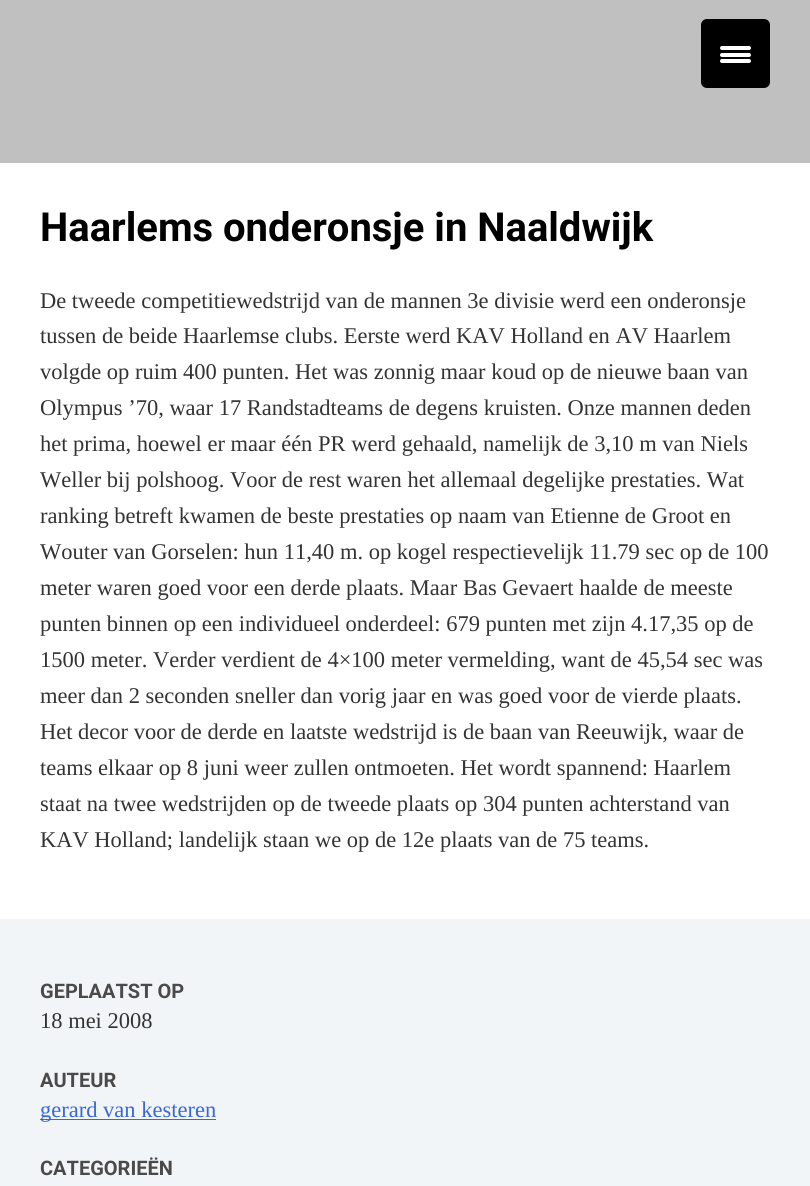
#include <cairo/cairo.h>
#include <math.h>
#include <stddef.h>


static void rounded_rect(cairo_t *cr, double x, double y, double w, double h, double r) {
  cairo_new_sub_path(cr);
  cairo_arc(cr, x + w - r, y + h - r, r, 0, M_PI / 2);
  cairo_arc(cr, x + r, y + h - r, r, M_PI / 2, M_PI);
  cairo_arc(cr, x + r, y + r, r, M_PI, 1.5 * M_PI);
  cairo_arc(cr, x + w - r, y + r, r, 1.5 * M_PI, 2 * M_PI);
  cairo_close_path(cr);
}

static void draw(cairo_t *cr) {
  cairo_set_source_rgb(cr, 192 / 255.0, 192 / 255.0, 192 / 255.0);
  cairo_paint(cr);
  cairo_set_source_rgb(cr, 0, 0, 0);
  rounded_rect(cr, 701, 19, 69, 69, 6);
  cairo_fill(cr);
  cairo_set_source_rgb(cr, 1, 1, 1);
  rounded_rect(cr, 720, 53, 31, 4, 2);
  cairo_fill(cr);
  rounded_rect(cr, 720, 46, 31, 4, 2);
  cairo_fill(cr);
  rounded_rect(cr, 720, 59, 31, 4, 2);
  cairo_fill(cr);
  cairo_rectangle(cr, 0, 163, 810, 756);
  cairo_fill(cr);
  cairo_set_source_rgb(cr, 242 / 255.0, 245 / 255.0, 247 / 255.0);
  cairo_rectangle(cr, 0, 919, 810, 267);
  cairo_fill(cr);
  cairo_set_source_rgb(cr, 56 / 255.0, 103 / 255.0, 214 / 255.0);
  cairo_rectangle(cr, 40, 1119, 176, 1);
  cairo_fill(cr);
  cairo_select_font_face(cr, "Roboto", CAIRO_FONT_SLANT_NORMAL, CAIRO_FONT_WEIGHT_BOLD);
  cairo_set_font_size(cr, 40);
  cairo_set_source_rgb(cr, 0, 0, 0);
  cairo_move_to(cr, 40, 241);
  cairo_show_text(cr, "Haarlems onderonsje in Naaldwijk");
  cairo_select_font_face(cr, "Liberation Serif", CAIRO_FONT_SLANT_NORMAL, CAIRO_FONT_WEIGHT_NORMAL);
  cairo_set_font_size(cr, 22.5);
  cairo_set_source_rgb(cr, 51 / 255.0, 51 / 255.0, 51 / 255.0);
  cairo_move_to(cr, 40, 308);
  cairo_show_text(cr, "De tweede competitiewedstrijd van de mannen 3e divisie werd een onderonsje");
  cairo_move_to(cr, 40, 343);
  cairo_show_text(cr, "tussen de beide Haarlemse clubs. Eerste werd KAV Holland en AV Haarlem");
  cairo_move_to(cr, 40, 379);
  cairo_show_text(cr, "volgde op ruim 400 punten. Het was zonnig maar koud op de nieuwe baan van");
  cairo_move_to(cr, 40, 415);
  cairo_show_text(cr, "Olympus ’70, waar 17 Randstadteams de degens kruisten. Onze mannen deden");
  cairo_move_to(cr, 40, 451);
  cairo_show_text(cr, "het prima, hoewel er maar één PR werd gehaald, namelijk de 3,10 m van Niels");
  cairo_move_to(cr, 40, 487);
  cairo_show_text(cr, "Weller bij polshoog. Voor de rest waren het allemaal degelijke prestaties. Wat");
  cairo_move_to(cr, 40, 523);
  cairo_show_text(cr, "ranking betreft kwamen de beste prestaties op naam van Etienne de Groot en");
  cairo_move_to(cr, 40, 559);
  cairo_show_text(cr, "Wouter van Gorselen: hun 11,40 m. op kogel respectievelijk 11.79 sec op de 100");
  cairo_move_to(cr, 40, 595);
  cairo_show_text(cr, "meter waren goed voor een derde plaats. Maar Bas Gevaert haalde de meeste");
  cairo_move_to(cr, 40, 631);
  cairo_show_text(cr, "punten binnen op een individueel onderdeel: 679 punten met zijn 4.17,35 op de");
  cairo_move_to(cr, 40, 667);
  cairo_show_text(cr, "1500 meter. Verder verdient de 4×100 meter vermelding, want de 45,54 sec was");
  cairo_move_to(cr, 40, 703);
  cairo_show_text(cr, "meer dan 2 seconden sneller dan vorig jaar en was goed voor de vierde plaats.");
  cairo_move_to(cr, 40, 739);
  cairo_show_text(cr, "Het decor voor de derde en laatste wedstrijd is de baan van Reeuwijk, waar de");
  cairo_move_to(cr, 40, 775);
  cairo_show_text(cr, "teams elkaar op 8 juni weer zullen ontmoeten. Het wordt spannend: Haarlem");
  cairo_move_to(cr, 40, 811);
  cairo_show_text(cr, "staat na twee wedstrijden op de tweede plaats op 304 punten achterstand van");
  cairo_move_to(cr, 40, 847);
  cairo_show_text(cr, "KAV Holland; landelijk staan we op de 12e plaats van de 75 teams.");
  cairo_select_font_face(cr, "Roboto", CAIRO_FONT_SLANT_NORMAL, CAIRO_FONT_WEIGHT_BOLD);
  cairo_set_font_size(cr, 20);
  cairo_set_source_rgb(cr, 74 / 255.0, 74 / 255.0, 74 / 255.0);
  cairo_move_to(cr, 40, 998);
  cairo_show_text(cr, "GEPLAATST OP");
  cairo_select_font_face(cr, "Liberation Serif", CAIRO_FONT_SLANT_NORMAL, CAIRO_FONT_WEIGHT_NORMAL);
  cairo_set_font_size(cr, 22.5);
  cairo_set_source_rgb(cr, 51 / 255.0, 51 / 255.0, 51 / 255.0);
  cairo_move_to(cr, 40, 1028);
  cairo_show_text(cr, "18 mei 2008");
  cairo_select_font_face(cr, "Roboto", CAIRO_FONT_SLANT_NORMAL, CAIRO_FONT_WEIGHT_BOLD);
  cairo_set_font_size(cr, 20);
  cairo_set_source_rgb(cr, 74 / 255.0, 74 / 255.0, 74 / 255.0);
  cairo_move_to(cr, 40, 1087);
  cairo_show_text(cr, "AUTEUR");
  cairo_select_font_face(cr, "Liberation Serif", CAIRO_FONT_SLANT_NORMAL, CAIRO_FONT_WEIGHT_NORMAL);
  cairo_set_font_size(cr, 22.5);
  cairo_set_source_rgb(cr, 56 / 255.0, 103 / 255.0, 214 / 255.0);
  cairo_move_to(cr, 40, 1117);
  cairo_show_text(cr, "gerard van kesteren");
  cairo_select_font_face(cr, "Roboto", CAIRO_FONT_SLANT_NORMAL, CAIRO_FONT_WEIGHT_BOLD);
  cairo_set_font_size(cr, 20);
  cairo_set_source_rgb(cr, 74 / 255.0, 74 / 255.0, 74 / 255.0);
  cairo_move_to(cr, 40, 1175);
  cairo_show_text(cr, "CATEGORIEËN");
}

int main(void) {
  cairo_surface_t *surface = cairo_image_surface_create(CAIRO_FORMAT_RGB24, 810, 1186);
  cairo_t *cr = cairo_create(surface);
  cairo_font_options_t *options = cairo_font_options_create();
  cairo_font_options_set_hint_metrics(options, CAIRO_HINT_METRICS_OFF);
  cairo_font_options_set_hint_style(options, CAIRO_HINT_STYLE_NONE);
  cairo_set_font_options(cr, options);
  cairo_set_miter_limit(cr, 4);
  draw(cr);
  cairo_surface_write_to_png(surface, "out.png");
  cairo_font_options_destroy(options);
  cairo_destroy(cr);
  cairo_surface_destroy(surface);
  return 0;
}
